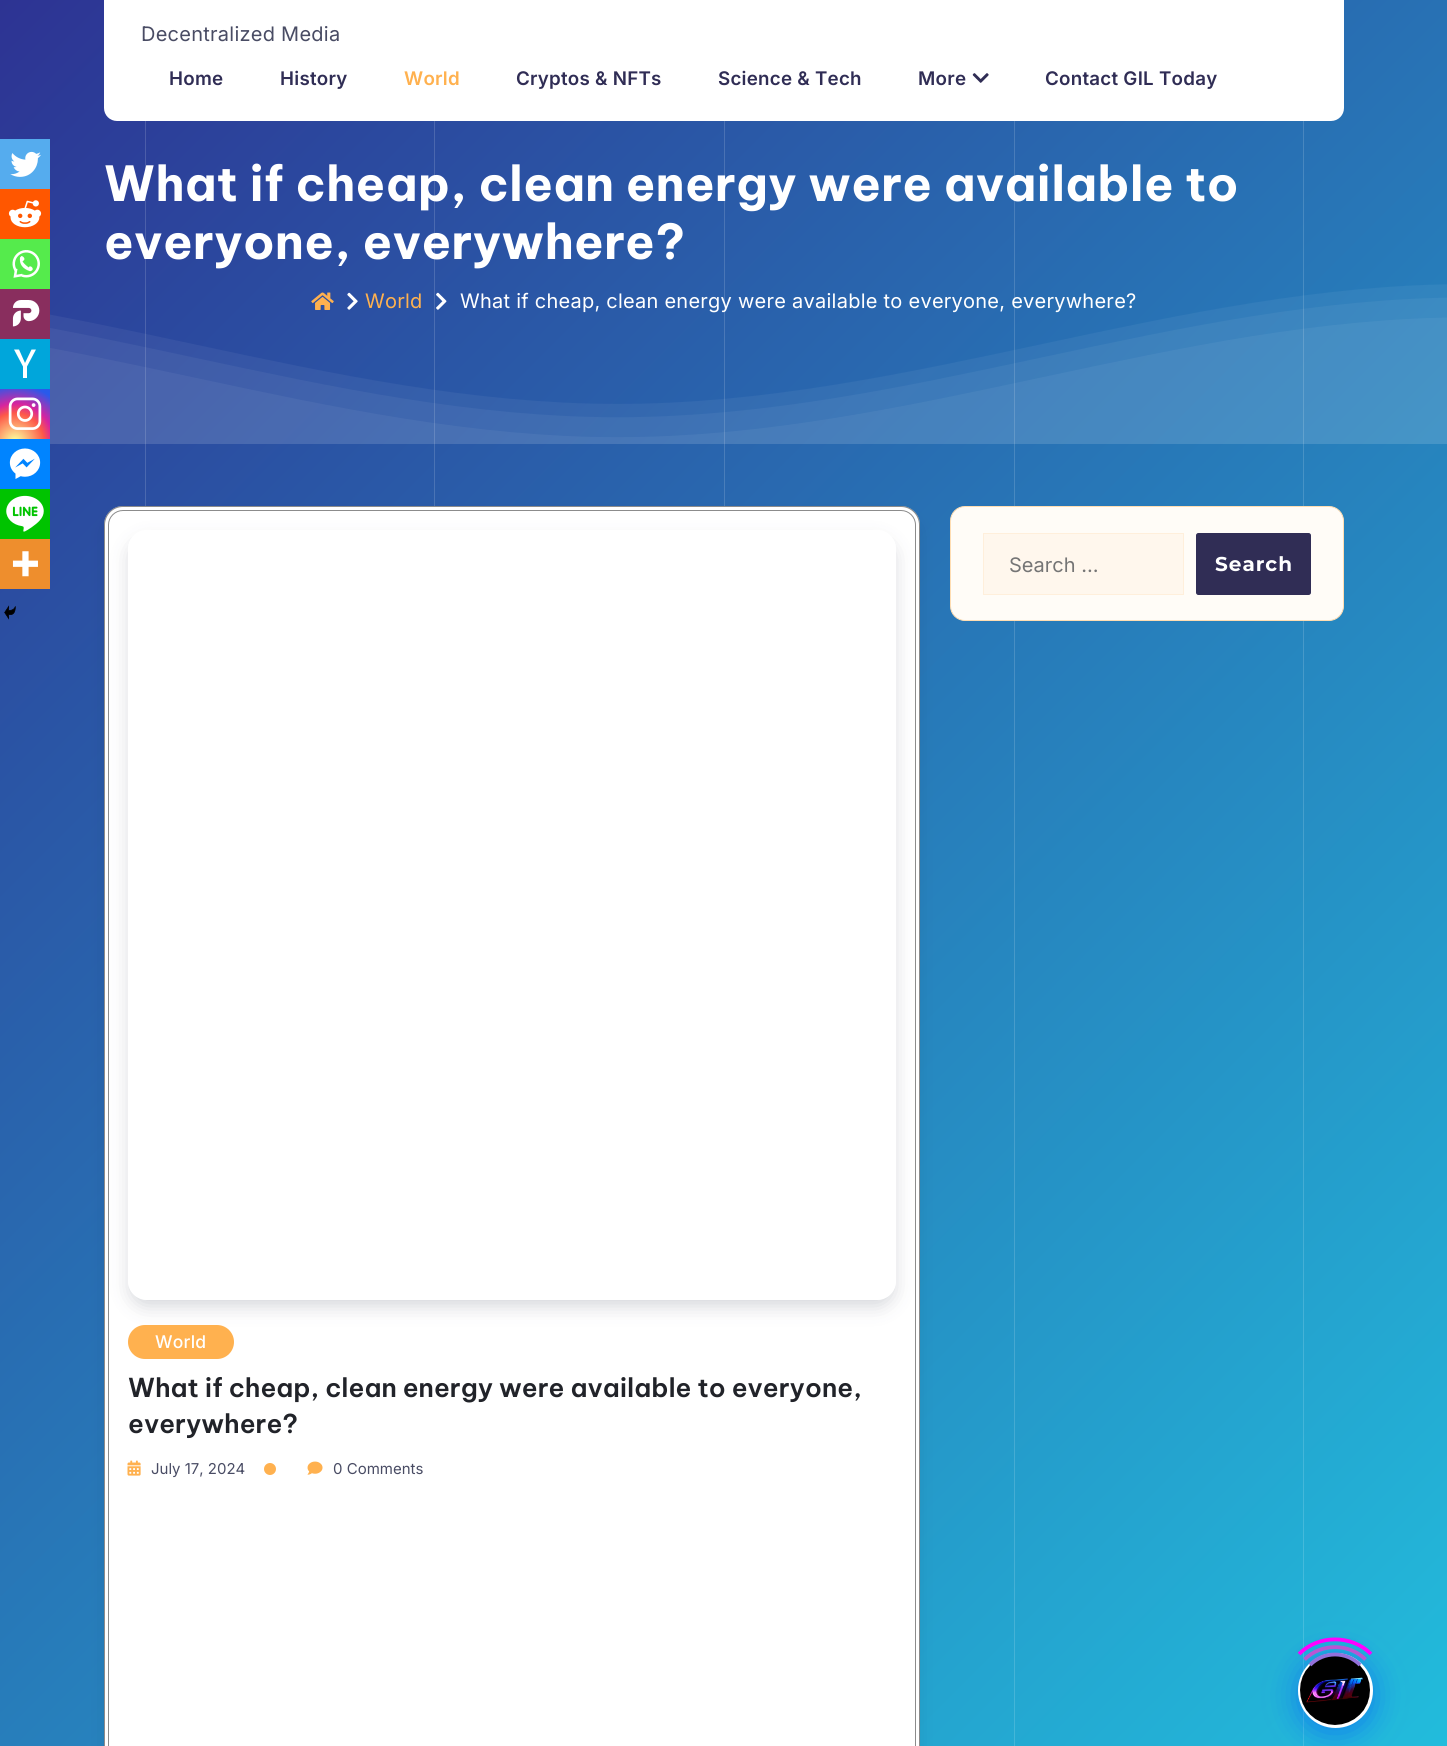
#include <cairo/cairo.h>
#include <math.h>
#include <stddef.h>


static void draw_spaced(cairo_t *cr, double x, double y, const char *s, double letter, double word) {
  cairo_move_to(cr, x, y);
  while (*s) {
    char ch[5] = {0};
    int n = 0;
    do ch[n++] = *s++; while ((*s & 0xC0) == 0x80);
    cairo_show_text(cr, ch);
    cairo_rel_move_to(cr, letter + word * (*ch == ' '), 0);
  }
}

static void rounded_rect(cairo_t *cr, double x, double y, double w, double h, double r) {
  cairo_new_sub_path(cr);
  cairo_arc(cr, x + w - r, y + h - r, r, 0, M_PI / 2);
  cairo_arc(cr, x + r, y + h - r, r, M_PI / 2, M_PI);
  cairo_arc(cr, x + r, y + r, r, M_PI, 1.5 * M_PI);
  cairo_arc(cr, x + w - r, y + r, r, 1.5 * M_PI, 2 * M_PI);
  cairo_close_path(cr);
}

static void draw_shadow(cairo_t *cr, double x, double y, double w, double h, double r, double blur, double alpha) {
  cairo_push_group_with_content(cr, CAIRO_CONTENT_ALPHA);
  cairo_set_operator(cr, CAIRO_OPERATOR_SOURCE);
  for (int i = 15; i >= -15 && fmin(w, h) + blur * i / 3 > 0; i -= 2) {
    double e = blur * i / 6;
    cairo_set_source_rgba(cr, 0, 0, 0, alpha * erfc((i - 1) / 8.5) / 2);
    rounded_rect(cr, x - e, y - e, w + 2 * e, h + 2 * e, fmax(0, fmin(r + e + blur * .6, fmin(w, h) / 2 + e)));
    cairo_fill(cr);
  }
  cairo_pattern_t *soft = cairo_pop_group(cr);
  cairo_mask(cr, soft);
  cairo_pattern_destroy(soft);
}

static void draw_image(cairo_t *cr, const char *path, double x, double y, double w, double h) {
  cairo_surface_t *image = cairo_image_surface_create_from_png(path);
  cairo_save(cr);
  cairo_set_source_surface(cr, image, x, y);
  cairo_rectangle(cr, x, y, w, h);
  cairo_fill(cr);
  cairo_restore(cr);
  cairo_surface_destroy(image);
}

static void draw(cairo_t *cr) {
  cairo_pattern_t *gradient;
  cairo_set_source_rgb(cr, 1, 1, 1);
  cairo_paint(cr);
  gradient = cairo_pattern_create_linear(-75, 75, 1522, 1672);
  cairo_pattern_add_color_stop_rgba(gradient, 0, 45 / 255.0, 51 / 255.0, 147 / 255.0, 1);
  cairo_pattern_add_color_stop_rgba(gradient, 1, 34 / 255.0, 188 / 255.0, 220 / 255.0, 1);
  cairo_set_source(cr, gradient);
  cairo_pattern_destroy(gradient);
  cairo_rectangle(cr, 0, 0, 1447, 1746);
  cairo_fill(cr);
  gradient = cairo_pattern_create_linear(-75, 75, 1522, 1672);
  cairo_pattern_add_color_stop_rgba(gradient, 0, 77 / 255.0, 82 / 255.0, 163 / 255.0, 1);
  cairo_pattern_add_color_stop_rgba(gradient, 1, 67 / 255.0, 198 / 255.0, 225 / 255.0, 1);
  cairo_set_source(cr, gradient);
  cairo_pattern_destroy(gradient);
  cairo_rectangle(cr, 1303, 121, 1, 1625);
  cairo_fill(cr);
  cairo_rectangle(cr, 1014, 121, 1, 1625);
  cairo_fill(cr);
  cairo_rectangle(cr, 724, 121, 1, 385);
  cairo_fill(cr);
  cairo_rectangle(cr, 434, 121, 1, 385);
  cairo_fill(cr);
  cairo_rectangle(cr, 145, 121, 1, 385);
  cairo_fill(cr);
  cairo_set_source_rgb(cr, 1, 1, 1);
  rounded_rect(cr, 104, -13, 1240, 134, 13);
  cairo_fill(cr);
  draw_image(cr, "images/1.png", 972, 73, 17, 10);
  draw_image(cr, "images/5.png", 50, 284, 1397, 160);
  draw_image(cr, "images/2.png", 311, 292, 23, 18);
  draw_image(cr, "images/3.png", 347, 292, 11, 18);
  draw_image(cr, "images/4.png", 436, 292, 11, 18);
  cairo_set_source_rgb(cr, 1, 252 / 255.0, 247 / 255.0);
  rounded_rect(cr, 950.5, 506.5, 393, 114, 14.5);
  cairo_fill_preserve(cr);
  cairo_set_source_rgb(cr, 1, 221 / 255.0, 178 / 255.0);
  cairo_set_line_width(cr, 1);
  cairo_stroke(cr);
  cairo_set_source_rgb(cr, 1, 247 / 255.0, 237 / 255.0);
  cairo_rectangle(cr, 983.5, 533.5, 200, 61);
  cairo_fill_preserve(cr);
  cairo_set_source_rgb(cr, 1, 239 / 255.0, 219 / 255.0);
  cairo_stroke(cr);
  cairo_set_source_rgb(cr, 48 / 255.0, 45 / 255.0, 85 / 255.0);
  rounded_rect(cr, 1196.5, 533.5, 114, 61, 2);
  cairo_fill_preserve(cr);
  cairo_stroke(cr);
  cairo_set_source_rgb(cr, 0, 0, 0);
  draw_shadow(cr, 108, 519, 808, 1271, 15, 9.5, 0.1);
  cairo_set_source_rgb(cr, 1, 1, 1);
  rounded_rect(cr, 104, 506, 816, 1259, 19);
  cairo_fill(cr);
  rounded_rect(cr, 104.5, 506.5, 815, 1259, 18.5);
  cairo_set_source_rgba(cr, 0, 0, 0, 0.45);
  cairo_stroke(cr);
  rounded_rect(cr, 108.5, 510.5, 807, 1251, 14.5);
  cairo_set_source_rgb(cr, 140 / 255.0, 140 / 255.0, 140 / 255.0);
  cairo_stroke(cr);
  cairo_save(cr);
  cairo_set_fill_rule(cr, CAIRO_FILL_RULE_EVEN_ODD);
  cairo_new_path(cr);
  cairo_move_to(cr, 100, 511);
  cairo_line_to(cr, 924, 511);
  cairo_line_to(cr, 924, 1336);
  cairo_line_to(cr, 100, 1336);
  cairo_close_path(cr);
  cairo_move_to(cr, 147, 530);
  cairo_line_to(cr, 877, 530);
  cairo_curve_to(cr, 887.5, 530, 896, 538.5, 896, 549);
  cairo_line_to(cr, 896, 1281);
  cairo_curve_to(cr, 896, 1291.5, 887.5, 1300, 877, 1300);
  cairo_line_to(cr, 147, 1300);
  cairo_curve_to(cr, 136.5, 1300, 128, 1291.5, 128, 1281);
  cairo_line_to(cr, 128, 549);
  cairo_curve_to(cr, 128, 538.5, 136.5, 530, 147, 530);
  cairo_close_path(cr);
  cairo_clip(cr);
  cairo_set_source_rgb(cr, 38 / 255.0, 47 / 255.0, 72 / 255.0);
  draw_shadow(cr, 130, 541, 764, 765, 16, 9.5, 0.2);
  cairo_restore(cr);
  cairo_set_source_rgb(cr, 85 / 255.0, 172 / 255.0, 238 / 255.0);
  cairo_rectangle(cr, 0, 139, 50, 50);
  cairo_fill(cr);
  draw_image(cr, "images/6.png", 10, 151, 31, 26);
  cairo_set_source_rgb(cr, 1, 87 / 255.0, 0);
  cairo_rectangle(cr, 0, 189, 50, 50);
  cairo_fill(cr);
  draw_image(cr, "images/7.png", 8, 200, 34, 28);
  cairo_set_source_rgb(cr, 85 / 255.0, 235 / 255.0, 76 / 255.0);
  cairo_rectangle(cr, 0, 239, 50, 50);
  cairo_fill(cr);
  draw_image(cr, "images/8.png", 12, 250, 28, 28);
  cairo_set_source_rgb(cr, 137 / 255.0, 46 / 255.0, 94 / 255.0);
  cairo_rectangle(cr, 0, 289, 50, 50);
  cairo_fill(cr);
  draw_image(cr, "images/9.png", 12, 300, 28, 27);
  cairo_set_source_rgb(cr, 0, 166 / 255.0, 219 / 255.0);
  cairo_rectangle(cr, 0, 339, 50, 50);
  cairo_fill(cr);
  cairo_set_source_rgb(cr, 1, 1, 1);
  cairo_new_path(cr);
  cairo_move_to(cr, 27, 366.5);
  cairo_line_to(cr, 27, 378);
  cairo_line_to(cr, 23, 378);
  cairo_line_to(cr, 23, 366.5);
  cairo_line_to(cr, 14, 349.5);
  cairo_line_to(cr, 19, 349.5);
  cairo_line_to(cr, 25, 363);
  cairo_line_to(cr, 31.5, 349.5);
  cairo_line_to(cr, 36, 349.5);
  cairo_close_path(cr);
  cairo_fill(cr);
  gradient = cairo_pattern_create_radial(15, 442, 0, 15, 442, 64);
  cairo_pattern_add_color_stop_rgba(gradient, 0, 253 / 255.0, 244 / 255.0, 151 / 255.0, 1);
  cairo_pattern_add_color_stop_rgba(gradient, 0.05, 253 / 255.0, 244 / 255.0, 151 / 255.0, 1);
  cairo_pattern_add_color_stop_rgba(gradient, 0.45, 253 / 255.0, 89 / 255.0, 73 / 255.0, 1);
  cairo_pattern_add_color_stop_rgba(gradient, 0.6, 214 / 255.0, 36 / 255.0, 159 / 255.0, 1);
  cairo_pattern_add_color_stop_rgba(gradient, 0.9, 40 / 255.0, 90 / 255.0, 235 / 255.0, 1);
  cairo_set_source(cr, gradient);
  cairo_pattern_destroy(gradient);
  cairo_rectangle(cr, 0, 389, 50, 50);
  cairo_fill(cr);
  draw_image(cr, "images/10.png", 8, 397, 34, 33);
  cairo_set_source_rgb(cr, 0, 132 / 255.0, 1);
  cairo_rectangle(cr, 0, 439, 50, 50);
  cairo_fill(cr);
  draw_image(cr, "images/11.png", 9, 448, 32, 31);
  cairo_set_source_rgb(cr, 0, 195 / 255.0, 0);
  cairo_rectangle(cr, 0, 489, 50, 50);
  cairo_fill(cr);
  draw_image(cr, "images/12.png", 6, 495, 38, 37);
  cairo_set_source_rgb(cr, 238 / 255.0, 142 / 255.0, 45 / 255.0);
  cairo_rectangle(cr, 0, 539, 50, 50);
  cairo_fill(cr);
  draw_image(cr, "images/13.png", 12, 551, 26, 26);
  draw_image(cr, "images/14.png", 4, 605, 12, 15);
  cairo_set_source_rgb(cr, 1, 177 / 255.0, 79 / 255.0);
  rounded_rect(cr, 128, 1325, 106, 34, 17);
  cairo_fill(cr);
  draw_image(cr, "images/15.png", 127, 1460, 14, 16);
  cairo_arc(cr, 270, 1469, 6, 0, 2 * M_PI);
  cairo_fill(cr);
  draw_image(cr, "images/16.png", 307, 1461, 16, 14);
  cairo_set_source_rgb(cr, 0, 77 / 255.0, 1);
  draw_shadow(cr, 1298, 1658, 75, 75, 37.5, 15, 0.5);
  cairo_set_source_rgb(cr, 1, 1, 1);
  cairo_arc(cr, 1335.5, 1690.5, 37.5, 0, 2 * M_PI);
  cairo_fill(cr);
  draw_image(cr, "images/17.png", 1300, 1656, 70, 69);
  cairo_new_path(cr);
  cairo_move_to(cr, 1310, 1665);
  cairo_curve_to(cr, 1323.5, 1651, 1346.5, 1651, 1360, 1665);
  cairo_set_source_rgb(cr, 147 / 255.0, 112 / 255.0, 219 / 255.0);
  cairo_set_line_width(cr, 3.8);
  cairo_stroke(cr);
  cairo_new_path(cr);
  cairo_move_to(cr, 1304.5, 1659.5);
  cairo_curve_to(cr, 1321, 1643, 1349, 1643, 1365.5, 1659.5);
  cairo_set_source_rgb(cr, 186 / 255.0, 85 / 255.0, 211 / 255.0);
  cairo_stroke(cr);
  cairo_new_path(cr);
  cairo_move_to(cr, 1299, 1654);
  cairo_curve_to(cr, 1318.5, 1634.5, 1351.5, 1634.5, 1371, 1654);
  cairo_set_source_rgb(cr, 1, 0, 1);
  cairo_stroke(cr);
  cairo_select_font_face(cr, "Inter", CAIRO_FONT_SLANT_NORMAL, CAIRO_FONT_WEIGHT_NORMAL);
  cairo_set_font_size(cr, 20);
  cairo_set_source_rgb(cr, 73 / 255.0, 76 / 255.0, 100 / 255.0);
  draw_spaced(cr, 141, 41, "Decentralized Media", 0.25, 0);
  cairo_select_font_face(cr, "Inter SemiBold", CAIRO_FONT_SLANT_NORMAL, CAIRO_FONT_WEIGHT_NORMAL);
  cairo_set_font_size(cr, 18.75);
  cairo_set_source_rgb(cr, 48 / 255.0, 45 / 255.0, 85 / 255.0);
  draw_spaced(cr, 169, 85, "Home", 0.25, 0);
  draw_spaced(cr, 280, 85, "History", 0.25, 0);
  cairo_set_source_rgb(cr, 1, 177 / 255.0, 79 / 255.0);
  draw_spaced(cr, 404, 85, "World", 0.25, 0);
  cairo_set_source_rgb(cr, 48 / 255.0, 45 / 255.0, 85 / 255.0);
  draw_spaced(cr, 516, 85, "Cryptos & NFTs", 0.25, 0);
  draw_spaced(cr, 718, 85, "Science & Tech", 0.25, 0);
  draw_spaced(cr, 918, 85, "More", 0.25, 0);
  draw_spaced(cr, 1045, 85, "Contact GIL Today", 0.25, 0);
  cairo_select_font_face(cr, "Be Vietnam Pro", CAIRO_FONT_SLANT_NORMAL, CAIRO_FONT_WEIGHT_BOLD);
  cairo_set_font_size(cr, 48.25);
  cairo_set_source_rgb(cr, 1, 1, 1);
  draw_spaced(cr, 104, 201, "What if cheap, clean energy were available to", 0.25, 0);
  draw_spaced(cr, 104, 259, "everyone, everywhere?", 0.25, 0);
  cairo_select_font_face(cr, "Inter", CAIRO_FONT_SLANT_NORMAL, CAIRO_FONT_WEIGHT_NORMAL);
  cairo_set_font_size(cr, 20);
  cairo_set_source_rgb(cr, 1, 177 / 255.0, 79 / 255.0);
  draw_spaced(cr, 365, 308, "World", 0.25, 0);
  cairo_set_source_rgb(cr, 1, 1, 1);
  draw_spaced(cr, 460, 308, "What if cheap, clean energy were available to everyone, everywhere?", 0.25, 0);
  cairo_set_source_rgb(cr, 117 / 255.0, 117 / 255.0, 117 / 255.0);
  cairo_move_to(cr, 1009, 572);
  cairo_show_text(cr, "Search …");
  cairo_select_font_face(cr, "Montserrat", CAIRO_FONT_SLANT_NORMAL, CAIRO_FONT_WEIGHT_BOLD);
  cairo_set_source_rgb(cr, 1, 1, 1);
  draw_spaced(cr, 1215, 571, "Search", 1, 0);
  cairo_select_font_face(cr, "Inter Medium", CAIRO_FONT_SLANT_NORMAL, CAIRO_FONT_WEIGHT_NORMAL);
  cairo_set_font_size(cr, 17.5);
  draw_spaced(cr, 155, 1348, "World", 0.25, 0);
  cairo_select_font_face(cr, "Be Vietnam Pro SemiBold", CAIRO_FONT_SLANT_NORMAL, CAIRO_FONT_WEIGHT_NORMAL);
  cairo_set_font_size(cr, 26);
  cairo_set_source_rgb(cr, 33 / 255.0, 35 / 255.0, 41 / 255.0);
  cairo_move_to(cr, 128, 1397);
  cairo_show_text(cr, "What if cheap, clean energy were available to everyone,");
  cairo_move_to(cr, 128, 1433);
  cairo_show_text(cr, "everywhere?");
  cairo_select_font_face(cr, "Inter", CAIRO_FONT_SLANT_NORMAL, CAIRO_FONT_WEIGHT_NORMAL);
  cairo_set_font_size(cr, 15);
  cairo_set_source_rgb(cr, 73 / 255.0, 76 / 255.0, 100 / 255.0);
  cairo_move_to(cr, 151, 1474);
  cairo_show_text(cr, "July 17, 2024");
  cairo_move_to(cr, 333, 1474);
  cairo_show_text(cr, "0 Comments");
}

int main(void) {
  cairo_surface_t *surface = cairo_image_surface_create(CAIRO_FORMAT_RGB24, 1447, 1746);
  cairo_t *cr = cairo_create(surface);
  cairo_font_options_t *options = cairo_font_options_create();
  cairo_font_options_set_hint_metrics(options, CAIRO_HINT_METRICS_OFF);
  cairo_font_options_set_hint_style(options, CAIRO_HINT_STYLE_NONE);
  cairo_set_font_options(cr, options);
  cairo_set_miter_limit(cr, 4);
  draw(cr);
  cairo_surface_write_to_png(surface, "out.png");
  cairo_font_options_destroy(options);
  cairo_destroy(cr);
  cairo_surface_destroy(surface);
  return 0;
}
